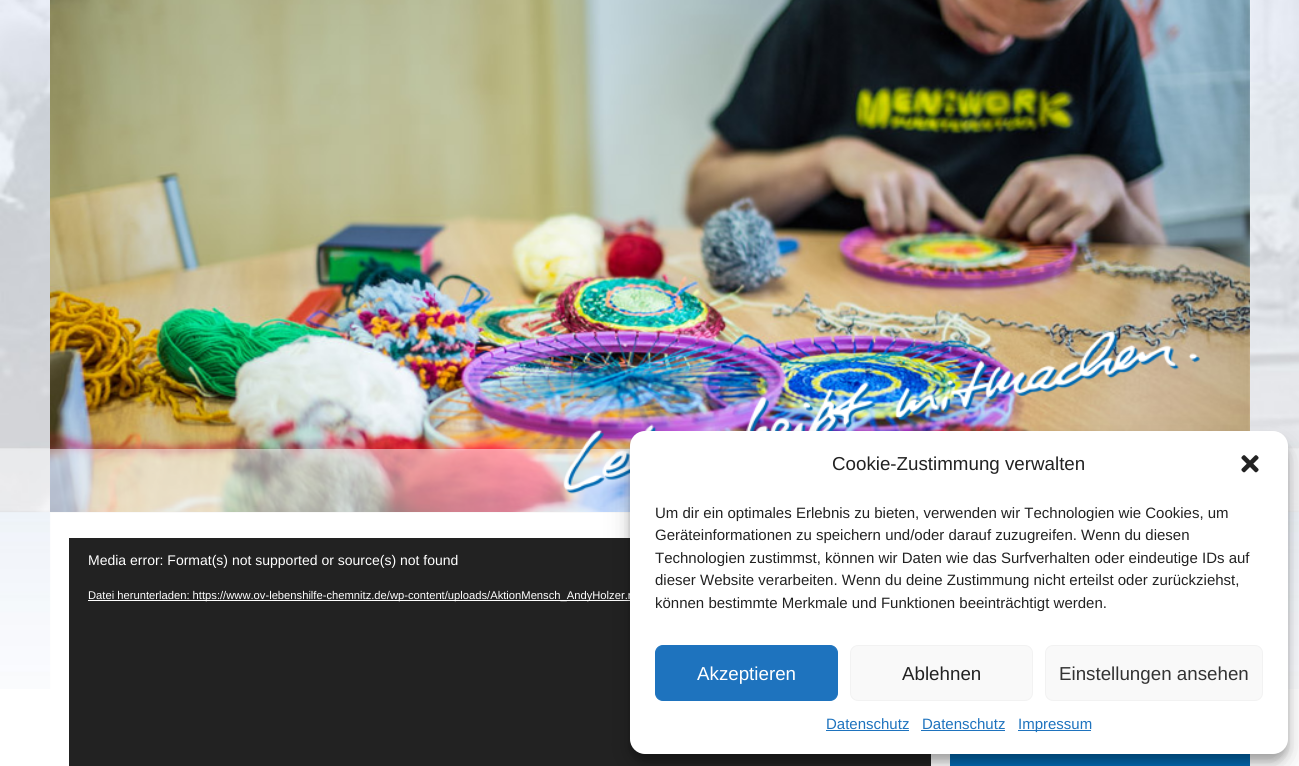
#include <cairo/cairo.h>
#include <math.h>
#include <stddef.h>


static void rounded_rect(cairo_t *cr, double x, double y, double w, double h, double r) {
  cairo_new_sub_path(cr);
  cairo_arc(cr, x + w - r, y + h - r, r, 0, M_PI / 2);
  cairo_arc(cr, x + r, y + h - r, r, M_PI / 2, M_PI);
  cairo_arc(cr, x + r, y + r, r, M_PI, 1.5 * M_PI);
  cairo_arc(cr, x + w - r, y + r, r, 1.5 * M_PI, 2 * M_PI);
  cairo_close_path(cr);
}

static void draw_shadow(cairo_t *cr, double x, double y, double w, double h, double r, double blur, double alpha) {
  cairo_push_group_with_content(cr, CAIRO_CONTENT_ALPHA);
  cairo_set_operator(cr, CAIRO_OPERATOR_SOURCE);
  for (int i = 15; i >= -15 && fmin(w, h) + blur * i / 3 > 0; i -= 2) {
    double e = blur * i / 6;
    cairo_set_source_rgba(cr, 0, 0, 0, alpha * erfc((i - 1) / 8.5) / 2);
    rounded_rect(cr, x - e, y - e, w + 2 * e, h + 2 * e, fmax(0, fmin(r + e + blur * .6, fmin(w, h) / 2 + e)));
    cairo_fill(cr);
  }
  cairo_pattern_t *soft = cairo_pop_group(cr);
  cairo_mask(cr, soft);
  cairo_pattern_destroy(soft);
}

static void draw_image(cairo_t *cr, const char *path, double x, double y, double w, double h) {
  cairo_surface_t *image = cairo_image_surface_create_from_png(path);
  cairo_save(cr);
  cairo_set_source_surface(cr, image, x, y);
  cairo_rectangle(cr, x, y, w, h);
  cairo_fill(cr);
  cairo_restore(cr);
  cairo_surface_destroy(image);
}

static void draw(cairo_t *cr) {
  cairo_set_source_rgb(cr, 1, 1, 1);
  cairo_paint(cr);
  draw_image(cr, "images/1.png", 0, 0, 1299, 689);
  cairo_set_source_rgb(cr, 245 / 255.0, 245 / 255.0, 245 / 255.0);
  cairo_rectangle(cr, 50, 512, 580, 1);
  cairo_fill(cr);
  draw_image(cr, "images/2.png", 50, 0, 1200, 512);
  cairo_set_source_rgba(cr, 1, 1, 1, 0.5);
  cairo_rectangle(cr, 50, 449, 580, 64);
  cairo_fill(cr);
  draw_image(cr, "images/3.png", 563, 330, 637, 164);
  cairo_set_source_rgb(cr, 34 / 255.0, 34 / 255.0, 34 / 255.0);
  cairo_rectangle(cr, 69, 538, 862, 228);
  cairo_fill(cr);
  cairo_set_source_rgb(cr, 1, 1, 1);
  cairo_rectangle(cr, 88, 600, 542, 1);
  cairo_fill(cr);
  cairo_set_source_rgb(cr, 0, 106 / 255.0, 179 / 255.0);
  cairo_rectangle(cr, 950, 754, 300, 12);
  cairo_fill(cr);
  cairo_set_source_rgb(cr, 0, 0, 0);
  draw_shadow(cr, 630, 439, 658, 322, 15, 4, 0.23);
  draw_shadow(cr, 630, 444, 658, 322, 15, 12.5, 0.19);
  cairo_set_source_rgb(cr, 1, 1, 1);
  rounded_rect(cr, 630, 431, 658, 323, 15);
  cairo_fill(cr);
  draw_image(cr, "images/4.png", 1241, 455, 18, 18);
  cairo_set_source_rgb(cr, 30 / 255.0, 115 / 255.0, 190 / 255.0);
  rounded_rect(cr, 655.5, 645.5, 182, 55, 7.5);
  cairo_fill_preserve(cr);
  cairo_set_line_width(cr, 1);
  cairo_stroke(cr);
  cairo_set_source_rgb(cr, 249 / 255.0, 249 / 255.0, 249 / 255.0);
  rounded_rect(cr, 850.5, 645.5, 182, 55, 7.5);
  cairo_fill_preserve(cr);
  cairo_set_source_rgb(cr, 242 / 255.0, 242 / 255.0, 242 / 255.0);
  cairo_stroke(cr);
  cairo_set_source_rgb(cr, 249 / 255.0, 249 / 255.0, 249 / 255.0);
  rounded_rect(cr, 1045.5, 645.5, 217, 55, 7.5);
  cairo_fill_preserve(cr);
  cairo_set_source_rgb(cr, 242 / 255.0, 242 / 255.0, 242 / 255.0);
  cairo_stroke(cr);
  cairo_set_source_rgb(cr, 30 / 255.0, 115 / 255.0, 190 / 255.0);
  cairo_rectangle(cr, 826, 730, 83, 1);
  cairo_fill(cr);
  cairo_rectangle(cr, 921, 730, 84, 1);
  cairo_fill(cr);
  cairo_rectangle(cr, 1018, 730, 73, 1);
  cairo_fill(cr);
  cairo_select_font_face(cr, "Liberation Sans", CAIRO_FONT_SLANT_NORMAL, CAIRO_FONT_WEIGHT_NORMAL);
  cairo_set_font_size(cr, 14);
  cairo_set_source_rgb(cr, 1, 1, 1);
  cairo_move_to(cr, 88, 565);
  cairo_show_text(cr, "Media error: Format(s) not supported or source(s) not found");
  cairo_set_font_size(cr, 11.2);
  cairo_move_to(cr, 88, 599);
  cairo_show_text(cr, "Datei herunterladen: https://www.ov-lebenshilfe-chemnitz.de/wp-content/uploads/AktionMensch_AndyHolzer.m");
  cairo_set_font_size(cr, 18.75);
  cairo_set_source_rgb(cr, 34 / 255.0, 34 / 255.0, 34 / 255.0);
  cairo_move_to(cr, 832, 470);
  cairo_show_text(cr, "Cookie-Zustimmung verwalten");
  cairo_set_font_size(cr, 15);
  cairo_move_to(cr, 655, 518);
  cairo_show_text(cr, "Um dir ein optimales Erlebnis zu bieten, verwenden wir Technologien wie Cookies, um");
  cairo_move_to(cr, 655, 540);
  cairo_show_text(cr, "Geräteinformationen zu speichern und/oder darauf zuzugreifen. Wenn du diesen");
  cairo_move_to(cr, 655, 563);
  cairo_show_text(cr, "Technologien zustimmst, können wir Daten wie das Surfverhalten oder eindeutige IDs auf");
  cairo_move_to(cr, 655, 585);
  cairo_show_text(cr, "dieser Website verarbeiten. Wenn du deine Zustimmung nicht erteilst oder zurückziehst,");
  cairo_move_to(cr, 655, 608);
  cairo_show_text(cr, "können bestimmte Merkmale und Funktionen beeinträchtigt werden.");
  cairo_set_font_size(cr, 18.75);
  cairo_set_source_rgb(cr, 1, 1, 1);
  cairo_move_to(cr, 697, 680);
  cairo_show_text(cr, "Akzeptieren");
  cairo_set_source_rgb(cr, 34 / 255.0, 34 / 255.0, 34 / 255.0);
  cairo_move_to(cr, 902, 680);
  cairo_show_text(cr, "Ablehnen");
  cairo_set_source_rgb(cr, 51 / 255.0, 51 / 255.0, 51 / 255.0);
  cairo_move_to(cr, 1059, 680);
  cairo_show_text(cr, "Einstellungen ansehen");
  cairo_set_font_size(cr, 15);
  cairo_set_source_rgb(cr, 30 / 255.0, 115 / 255.0, 190 / 255.0);
  cairo_move_to(cr, 826, 729);
  cairo_show_text(cr, "Datenschutz");
  cairo_move_to(cr, 922, 729);
  cairo_show_text(cr, "Datenschutz");
  cairo_move_to(cr, 1018, 729);
  cairo_show_text(cr, "Impressum");
}

int main(void) {
  cairo_surface_t *surface = cairo_image_surface_create(CAIRO_FORMAT_RGB24, 1299, 766);
  cairo_t *cr = cairo_create(surface);
  cairo_font_options_t *options = cairo_font_options_create();
  cairo_font_options_set_hint_metrics(options, CAIRO_HINT_METRICS_OFF);
  cairo_font_options_set_hint_style(options, CAIRO_HINT_STYLE_NONE);
  cairo_set_font_options(cr, options);
  cairo_set_miter_limit(cr, 4);
  draw(cr);
  cairo_surface_write_to_png(surface, "out.png");
  cairo_font_options_destroy(options);
  cairo_destroy(cr);
  cairo_surface_destroy(surface);
  return 0;
}
